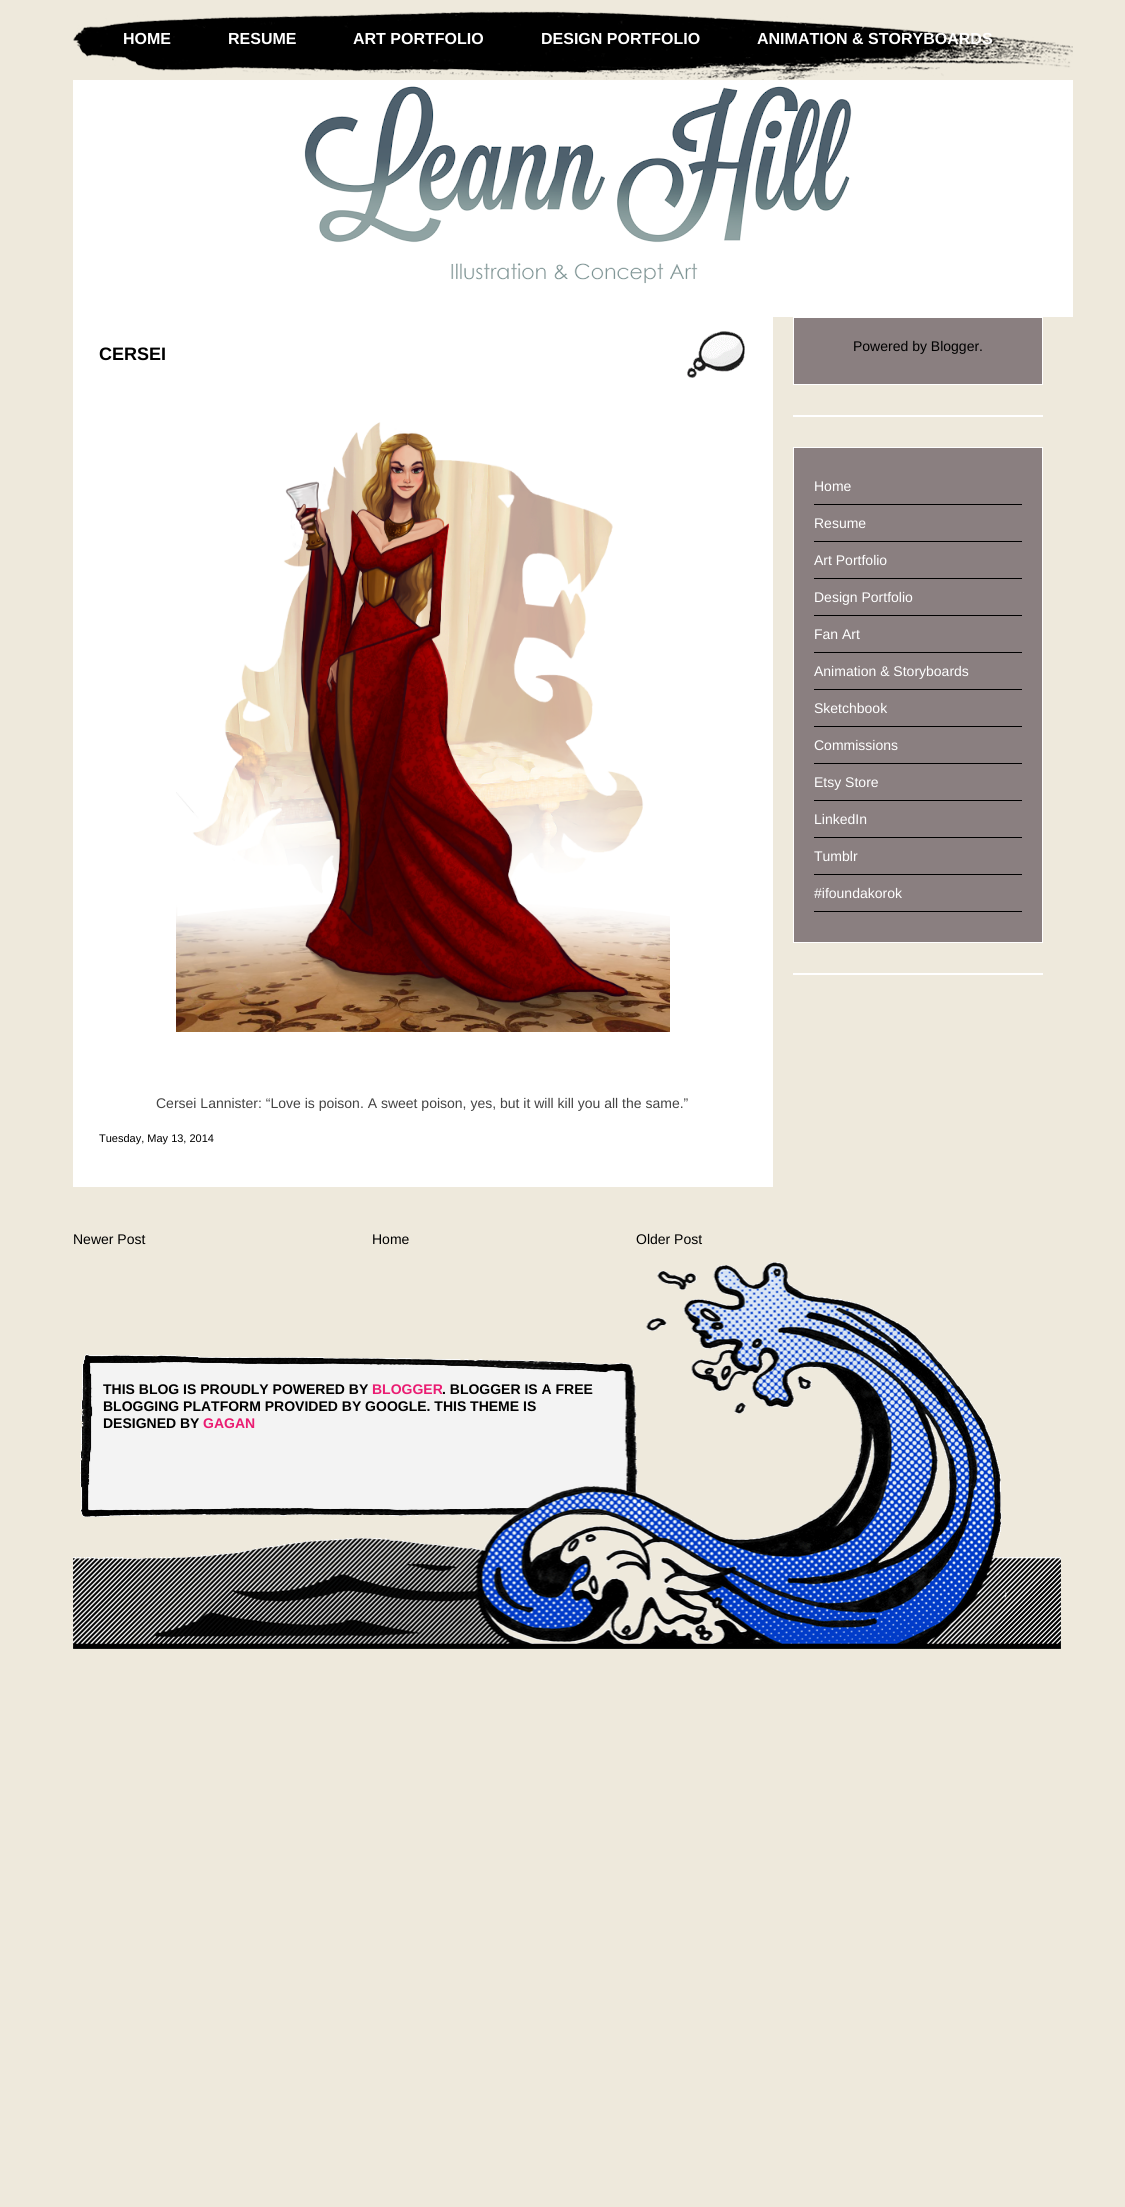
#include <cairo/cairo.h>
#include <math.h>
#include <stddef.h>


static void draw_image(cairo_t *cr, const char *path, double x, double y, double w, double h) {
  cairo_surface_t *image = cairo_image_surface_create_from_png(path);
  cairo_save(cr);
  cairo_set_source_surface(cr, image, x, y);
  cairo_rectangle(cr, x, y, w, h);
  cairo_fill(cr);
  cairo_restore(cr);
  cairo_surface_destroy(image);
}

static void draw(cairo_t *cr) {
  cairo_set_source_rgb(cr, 238 / 255.0, 233 / 255.0, 220 / 255.0);
  cairo_paint(cr);
  draw_image(cr, "images/1.png", 73, 11, 1000, 69);
  draw_image(cr, "images/2.png", 73, 80, 1000, 237);
  cairo_set_source_rgb(cr, 1, 1, 1);
  cairo_rectangle(cr, 73, 317, 700, 870);
  cairo_fill(cr);
  draw_image(cr, "images/3.png", 687, 331, 58, 47);
  draw_image(cr, "images/4.png", 176, 422, 494, 610);
  cairo_set_source_rgb(cr, 138 / 255.0, 127 / 255.0, 128 / 255.0);
  cairo_rectangle(cr, 793.5, 317.5, 249, 67);
  cairo_fill_preserve(cr);
  cairo_set_source_rgb(cr, 1, 1, 1);
  cairo_set_line_width(cr, 1);
  cairo_stroke(cr);
  cairo_rectangle(cr, 793, 415, 250, 2);
  cairo_fill(cr);
  cairo_set_source_rgb(cr, 138 / 255.0, 127 / 255.0, 128 / 255.0);
  cairo_rectangle(cr, 793.5, 447.5, 249, 495);
  cairo_fill_preserve(cr);
  cairo_set_source_rgb(cr, 1, 1, 1);
  cairo_stroke(cr);
  cairo_set_source_rgb(cr, 0, 0, 0);
  cairo_rectangle(cr, 814, 504, 208, 1);
  cairo_fill(cr);
  cairo_rectangle(cr, 814, 541, 208, 1);
  cairo_fill(cr);
  cairo_rectangle(cr, 814, 578, 208, 1);
  cairo_fill(cr);
  cairo_rectangle(cr, 814, 615, 208, 1);
  cairo_fill(cr);
  cairo_rectangle(cr, 814, 652, 208, 1);
  cairo_fill(cr);
  cairo_rectangle(cr, 814, 689, 208, 1);
  cairo_fill(cr);
  cairo_rectangle(cr, 814, 726, 208, 1);
  cairo_fill(cr);
  cairo_rectangle(cr, 814, 763, 208, 1);
  cairo_fill(cr);
  cairo_rectangle(cr, 814, 800, 208, 1);
  cairo_fill(cr);
  cairo_rectangle(cr, 814, 837, 208, 1);
  cairo_fill(cr);
  cairo_rectangle(cr, 814, 874, 208, 1);
  cairo_fill(cr);
  cairo_rectangle(cr, 814, 911, 208, 1);
  cairo_fill(cr);
  cairo_set_source_rgb(cr, 1, 1, 1);
  cairo_rectangle(cr, 793, 973, 250, 2);
  cairo_fill(cr);
  draw_image(cr, "images/5.png", 73, 1262, 988, 387);
  cairo_select_font_face(cr, "Liberation Sans", CAIRO_FONT_SLANT_NORMAL, CAIRO_FONT_WEIGHT_BOLD);
  cairo_set_font_size(cr, 16);
  cairo_move_to(cr, 123, 44);
  cairo_show_text(cr, "HOME");
  cairo_move_to(cr, 228, 44);
  cairo_show_text(cr, "RESUME");
  cairo_move_to(cr, 353, 44);
  cairo_show_text(cr, "ART PORTFOLIO");
  cairo_move_to(cr, 541, 44);
  cairo_show_text(cr, "DESIGN PORTFOLIO");
  cairo_move_to(cr, 757, 44);
  cairo_show_text(cr, "ANIMATION & STORYBOARDS");
  cairo_set_font_size(cr, 18);
  cairo_set_source_rgb(cr, 0, 0, 0);
  cairo_move_to(cr, 99, 360);
  cairo_show_text(cr, "CERSEI");
  cairo_select_font_face(cr, "Liberation Sans", CAIRO_FONT_SLANT_NORMAL, CAIRO_FONT_WEIGHT_NORMAL);
  cairo_set_font_size(cr, 14);
  cairo_set_source_rgb(cr, 68 / 255.0, 68 / 255.0, 68 / 255.0);
  cairo_move_to(cr, 156, 1108);
  cairo_show_text(cr, "Cersei Lannister: “Love is poison. A sweet poison, yes, but it will kill you all the same.”");
  cairo_set_font_size(cr, 11);
  cairo_set_source_rgb(cr, 0, 0, 0);
  cairo_move_to(cr, 99, 1142);
  cairo_show_text(cr, "Tuesday, May 13, 2014");
  cairo_set_font_size(cr, 14);
  cairo_move_to(cr, 73, 1244);
  cairo_show_text(cr, "Newer Post");
  cairo_move_to(cr, 372, 1244);
  cairo_show_text(cr, "Home");
  cairo_move_to(cr, 636, 1244);
  cairo_show_text(cr, "Older Post");
  cairo_move_to(cr, 853, 351);
  cairo_show_text(cr, "Powered by Blogger.");
  cairo_set_source_rgb(cr, 1, 1, 1);
  cairo_move_to(cr, 814, 491);
  cairo_show_text(cr, "Home");
  cairo_move_to(cr, 814, 528);
  cairo_show_text(cr, "Resume");
  cairo_move_to(cr, 814, 565);
  cairo_show_text(cr, "Art Portfolio");
  cairo_move_to(cr, 814, 602);
  cairo_show_text(cr, "Design Portfolio");
  cairo_move_to(cr, 814, 639);
  cairo_show_text(cr, "Fan Art");
  cairo_move_to(cr, 814, 676);
  cairo_show_text(cr, "Animation & Storyboards");
  cairo_move_to(cr, 814, 713);
  cairo_show_text(cr, "Sketchbook");
  cairo_move_to(cr, 814, 750);
  cairo_show_text(cr, "Commissions");
  cairo_move_to(cr, 814, 787);
  cairo_show_text(cr, "Etsy Store");
  cairo_move_to(cr, 814, 824);
  cairo_show_text(cr, "LinkedIn");
  cairo_move_to(cr, 814, 861);
  cairo_show_text(cr, "Tumblr");
  cairo_move_to(cr, 814, 898);
  cairo_show_text(cr, "#ifoundakorok");
  cairo_select_font_face(cr, "Liberation Sans", CAIRO_FONT_SLANT_NORMAL, CAIRO_FONT_WEIGHT_BOLD);
  cairo_set_source_rgb(cr, 0, 0, 0);
  cairo_move_to(cr, 103, 1394);
  cairo_show_text(cr, "THIS BLOG IS PROUDLY POWERED BY");
  cairo_set_source_rgb(cr, 234 / 255.0, 28 / 255.0, 114 / 255.0);
  cairo_move_to(cr, 372, 1394);
  cairo_show_text(cr, "BLOGGER");
  cairo_set_source_rgb(cr, 0, 0, 0);
  cairo_move_to(cr, 442, 1394);
  cairo_show_text(cr, ". BLOGGER IS A FREE");
  cairo_move_to(cr, 103, 1411);
  cairo_show_text(cr, "BLOGGING PLATFORM PROVIDED BY GOOGLE. THIS THEME IS");
  cairo_move_to(cr, 103, 1428);
  cairo_show_text(cr, "DESIGNED BY");
  cairo_set_source_rgb(cr, 234 / 255.0, 28 / 255.0, 114 / 255.0);
  cairo_move_to(cr, 203, 1428);
  cairo_show_text(cr, "GAGAN");
}

int main(void) {
  cairo_surface_t *surface = cairo_image_surface_create(CAIRO_FORMAT_RGB24, 1125, 2207);
  cairo_t *cr = cairo_create(surface);
  cairo_font_options_t *options = cairo_font_options_create();
  cairo_font_options_set_hint_metrics(options, CAIRO_HINT_METRICS_OFF);
  cairo_font_options_set_hint_style(options, CAIRO_HINT_STYLE_NONE);
  cairo_set_font_options(cr, options);
  cairo_set_miter_limit(cr, 4);
  draw(cr);
  cairo_surface_write_to_png(surface, "out.png");
  cairo_font_options_destroy(options);
  cairo_destroy(cr);
  cairo_surface_destroy(surface);
  return 0;
}
